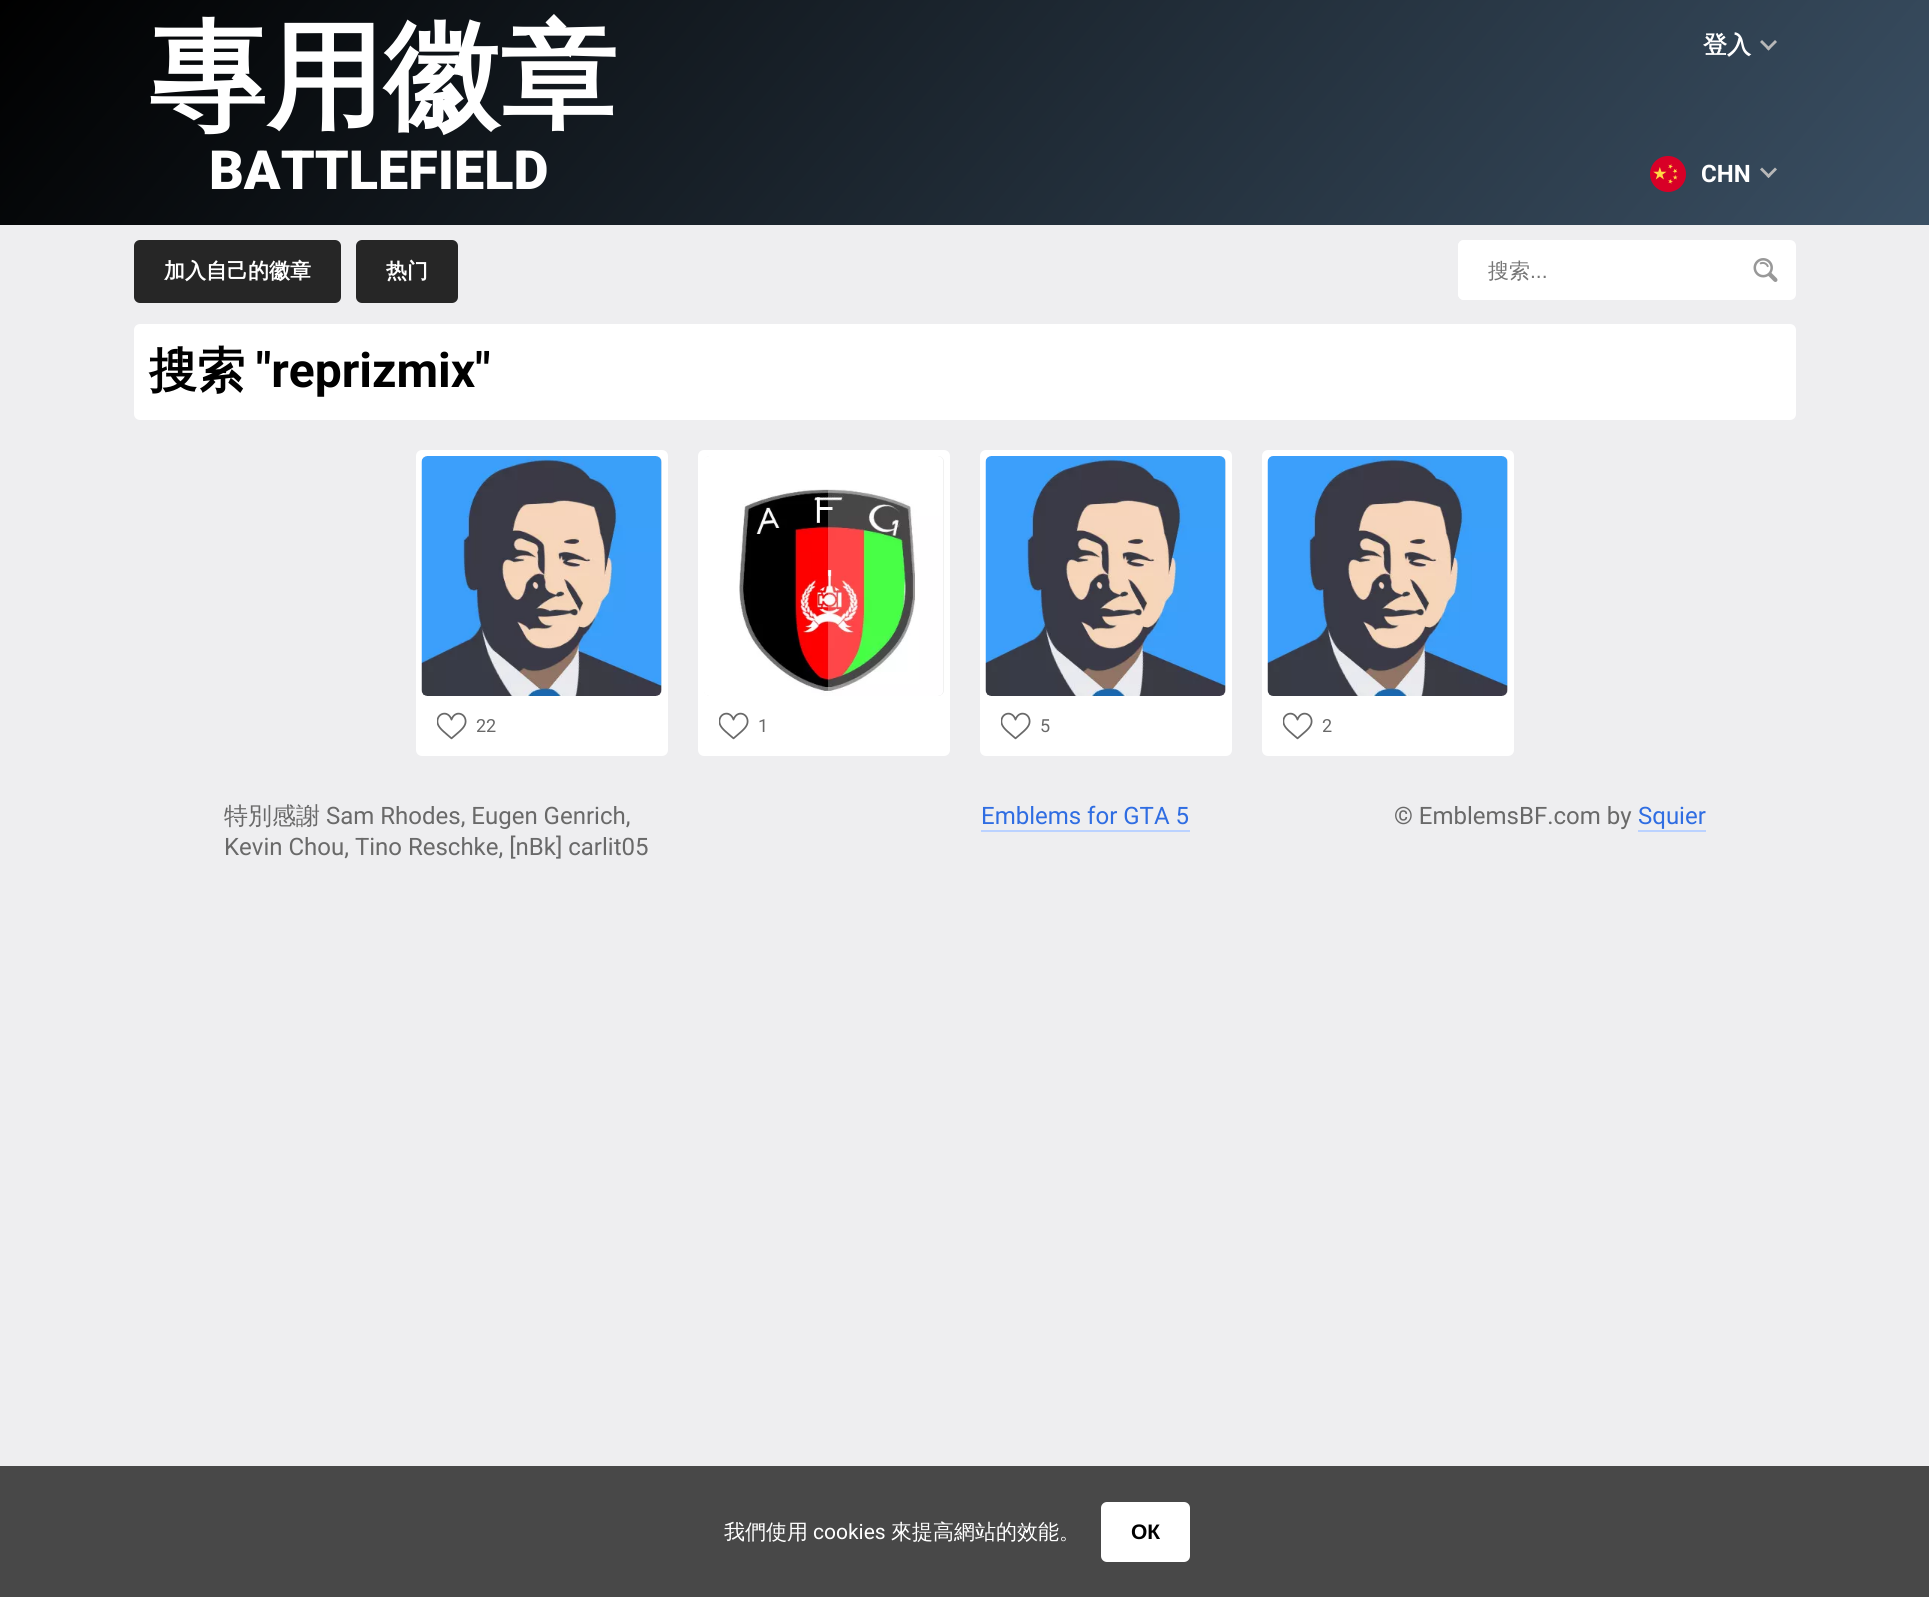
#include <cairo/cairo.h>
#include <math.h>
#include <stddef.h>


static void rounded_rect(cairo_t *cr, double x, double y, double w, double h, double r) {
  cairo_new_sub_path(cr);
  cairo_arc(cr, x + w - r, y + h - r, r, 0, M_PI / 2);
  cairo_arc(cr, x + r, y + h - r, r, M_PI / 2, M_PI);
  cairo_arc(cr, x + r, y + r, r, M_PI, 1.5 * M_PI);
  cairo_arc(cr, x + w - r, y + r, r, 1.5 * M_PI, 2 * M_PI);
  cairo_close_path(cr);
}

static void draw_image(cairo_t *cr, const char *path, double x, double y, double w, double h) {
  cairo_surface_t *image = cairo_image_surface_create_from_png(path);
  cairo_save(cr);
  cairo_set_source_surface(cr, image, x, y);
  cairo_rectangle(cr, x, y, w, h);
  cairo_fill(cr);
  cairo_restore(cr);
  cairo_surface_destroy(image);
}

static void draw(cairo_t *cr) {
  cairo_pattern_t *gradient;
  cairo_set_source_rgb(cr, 238 / 255.0, 238 / 255.0, 240 / 255.0);
  cairo_paint(cr);
  gradient = cairo_pattern_create_linear(343, -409, 1586, 634);
  cairo_pattern_add_color_stop_rgba(gradient, 0, 0, 0, 0, 1);
  cairo_pattern_add_color_stop_rgba(gradient, 1, 58 / 255.0, 79 / 255.0, 99 / 255.0, 1);
  cairo_set_source(cr, gradient);
  cairo_pattern_destroy(gradient);
  cairo_rectangle(cr, 0, 0, 1929, 225);
  cairo_fill(cr);
  cairo_set_source_rgb(cr, 184 / 255.0, 184 / 255.0, 184 / 255.0);
  cairo_new_path(cr);
  cairo_move_to(cr, 1775, 40);
  cairo_line_to(cr, 1777, 42);
  cairo_line_to(cr, 1768.5, 50.5);
  cairo_line_to(cr, 1766.5, 48.5);
  cairo_close_path(cr);
  cairo_fill(cr);
  cairo_new_path(cr);
  cairo_move_to(cr, 1762, 40);
  cairo_line_to(cr, 1770.5, 48.5);
  cairo_line_to(cr, 1768.5, 50.5);
  cairo_line_to(cr, 1760, 42);
  cairo_close_path(cr);
  cairo_fill(cr);
  draw_image(cr, "images/1.png", 1650, 156, 36, 36);
  cairo_new_path(cr);
  cairo_move_to(cr, 1775, 167.5);
  cairo_line_to(cr, 1777, 169.5);
  cairo_line_to(cr, 1768.5, 178);
  cairo_line_to(cr, 1766.5, 176);
  cairo_close_path(cr);
  cairo_fill(cr);
  cairo_new_path(cr);
  cairo_move_to(cr, 1762, 167.5);
  cairo_line_to(cr, 1770.5, 176);
  cairo_line_to(cr, 1768.5, 178);
  cairo_line_to(cr, 1760, 169.5);
  cairo_close_path(cr);
  cairo_fill(cr);
  cairo_set_source_rgb(cr, 38 / 255.0, 38 / 255.0, 38 / 255.0);
  rounded_rect(cr, 134, 240, 207, 63, 6);
  cairo_fill(cr);
  rounded_rect(cr, 356, 240, 102, 63, 6);
  cairo_fill(cr);
  cairo_set_source_rgb(cr, 1, 1, 1);
  rounded_rect(cr, 1458, 240, 338, 60, 6);
  cairo_fill(cr);
  rounded_rect(cr, 1458, 240, 278, 60, 6);
  cairo_fill(cr);
  draw_image(cr, "images/2.png", 1753, 258, 25, 24);
  rounded_rect(cr, 134, 324, 1662, 96, 6);
  cairo_fill(cr);
  rounded_rect(cr, 416, 450, 252, 306, 6);
  cairo_fill(cr);
  cairo_set_source_rgb(cr, 236 / 255.0, 236 / 255.0, 236 / 255.0);
  rounded_rect(cr, 422, 456, 240, 240, 6);
  cairo_fill(cr);
  draw_image(cr, "images/3.png", 421, 456, 241, 240);
  draw_image(cr, "images/4.png", 437, 712, 30, 28);
  cairo_set_source_rgb(cr, 1, 1, 1);
  rounded_rect(cr, 698, 450, 252, 306, 6);
  cairo_fill(cr);
  cairo_set_source_rgb(cr, 236 / 255.0, 236 / 255.0, 236 / 255.0);
  rounded_rect(cr, 704, 456, 240, 240, 6);
  cairo_fill(cr);
  draw_image(cr, "images/5.png", 704, 456, 240, 240);
  draw_image(cr, "images/4.png", 719, 712, 30, 28);
  cairo_set_source_rgb(cr, 1, 1, 1);
  rounded_rect(cr, 980, 450, 252, 306, 6);
  cairo_fill(cr);
  cairo_set_source_rgb(cr, 236 / 255.0, 236 / 255.0, 236 / 255.0);
  rounded_rect(cr, 986, 456, 240, 240, 6);
  cairo_fill(cr);
  draw_image(cr, "images/6.png", 985, 456, 241, 240);
  draw_image(cr, "images/4.png", 1001, 712, 30, 28);
  cairo_set_source_rgb(cr, 1, 1, 1);
  rounded_rect(cr, 1262, 450, 252, 306, 6);
  cairo_fill(cr);
  cairo_set_source_rgb(cr, 236 / 255.0, 236 / 255.0, 236 / 255.0);
  rounded_rect(cr, 1268, 456, 240, 240, 6);
  cairo_fill(cr);
  draw_image(cr, "images/7.png", 1267, 456, 241, 240);
  draw_image(cr, "images/4.png", 1283, 712, 30, 28);
  cairo_set_source_rgb(cr, 187 / 255.0, 210 / 255.0, 1);
  cairo_rectangle(cr, 981, 830, 209, 2);
  cairo_fill(cr);
  cairo_rectangle(cr, 1638, 830, 68, 2);
  cairo_fill(cr);
  cairo_set_source_rgb(cr, 72 / 255.0, 72 / 255.0, 72 / 255.0);
  cairo_rectangle(cr, 0, 1466, 1929, 131);
  cairo_fill(cr);
  cairo_set_source_rgb(cr, 1, 1, 1);
  rounded_rect(cr, 1101, 1502, 89, 60, 6);
  cairo_fill(cr);
  cairo_select_font_face(cr, "WenQuanYi Zen Hei", CAIRO_FONT_SLANT_NORMAL, CAIRO_FONT_WEIGHT_BOLD);
  cairo_set_font_size(cr, 117);
  cairo_move_to(cr, 149, 117);
  cairo_show_text(cr, "專用徽章");
  cairo_select_font_face(cr, "Roboto Black", CAIRO_FONT_SLANT_NORMAL, CAIRO_FONT_WEIGHT_NORMAL);
  cairo_set_font_size(cr, 54);
  cairo_move_to(cr, 209, 189);
  cairo_show_text(cr, "BATTLEFIELD");
  cairo_select_font_face(cr, "WenQuanYi Zen Hei", CAIRO_FONT_SLANT_NORMAL, CAIRO_FONT_WEIGHT_BOLD);
  cairo_set_font_size(cr, 24);
  cairo_move_to(cr, 1703, 53);
  cairo_show_text(cr, "登入");
  cairo_select_font_face(cr, "Roboto", CAIRO_FONT_SLANT_NORMAL, CAIRO_FONT_WEIGHT_BOLD);
  cairo_move_to(cr, 1701, 182);
  cairo_show_text(cr, "CHN");
  cairo_select_font_face(cr, "WenQuanYi Zen Hei", CAIRO_FONT_SLANT_NORMAL, CAIRO_FONT_WEIGHT_BOLD);
  cairo_set_font_size(cr, 21);
  cairo_move_to(cr, 164, 278);
  cairo_show_text(cr, "加入自己的徽章");
  cairo_move_to(cr, 386, 278);
  cairo_show_text(cr, "热门");
  cairo_select_font_face(cr, "WenQuanYi Zen Hei Medium", CAIRO_FONT_SLANT_NORMAL, CAIRO_FONT_WEIGHT_NORMAL);
  cairo_set_source_rgb(cr, 117 / 255.0, 117 / 255.0, 117 / 255.0);
  cairo_move_to(cr, 1488, 278);
  cairo_show_text(cr, "搜索");
  cairo_select_font_face(cr, "Liberation Sans", CAIRO_FONT_SLANT_NORMAL, CAIRO_FONT_WEIGHT_NORMAL);
  cairo_move_to(cr, 1530, 278);
  cairo_show_text(cr, "...");
  cairo_select_font_face(cr, "WenQuanYi Zen Hei", CAIRO_FONT_SLANT_NORMAL, CAIRO_FONT_WEIGHT_BOLD);
  cairo_set_font_size(cr, 48);
  cairo_set_source_rgb(cr, 0, 0, 0);
  cairo_move_to(cr, 149, 387);
  cairo_show_text(cr, "搜索");
  cairo_select_font_face(cr, "Roboto", CAIRO_FONT_SLANT_NORMAL, CAIRO_FONT_WEIGHT_BOLD);
  cairo_move_to(cr, 256, 387);
  cairo_show_text(cr, "\"reprizmix\"");
  cairo_select_font_face(cr, "Roboto", CAIRO_FONT_SLANT_NORMAL, CAIRO_FONT_WEIGHT_NORMAL);
  cairo_set_font_size(cr, 18);
  cairo_set_source_rgb(cr, 105 / 255.0, 105 / 255.0, 105 / 255.0);
  cairo_move_to(cr, 476, 732);
  cairo_show_text(cr, "22");
  cairo_move_to(cr, 758, 732);
  cairo_show_text(cr, "1");
  cairo_move_to(cr, 1040, 732);
  cairo_show_text(cr, "5");
  cairo_move_to(cr, 1322, 732);
  cairo_show_text(cr, "2");
  cairo_select_font_face(cr, "WenQuanYi Zen Hei Medium", CAIRO_FONT_SLANT_NORMAL, CAIRO_FONT_WEIGHT_NORMAL);
  cairo_set_font_size(cr, 24);
  cairo_move_to(cr, 224, 824);
  cairo_show_text(cr, "特別感謝");
  cairo_select_font_face(cr, "Roboto", CAIRO_FONT_SLANT_NORMAL, CAIRO_FONT_WEIGHT_NORMAL);
  cairo_move_to(cr, 326, 824);
  cairo_show_text(cr, "Sam Rhodes, Eugen Genrich,");
  cairo_move_to(cr, 224, 855);
  cairo_show_text(cr, "Kevin Chou, Tino Reschke, [nBk] carlit05");
  cairo_set_source_rgb(cr, 47 / 255.0, 109 / 255.0, 226 / 255.0);
  cairo_move_to(cr, 981, 824);
  cairo_show_text(cr, "Emblems for GTA 5");
  cairo_set_source_rgb(cr, 105 / 255.0, 105 / 255.0, 105 / 255.0);
  cairo_move_to(cr, 1394, 824);
  cairo_show_text(cr, "© EmblemsBF.com by");
  cairo_set_source_rgb(cr, 47 / 255.0, 109 / 255.0, 226 / 255.0);
  cairo_move_to(cr, 1638, 824);
  cairo_show_text(cr, "Squier");
  cairo_select_font_face(cr, "WenQuanYi Zen Hei Medium", CAIRO_FONT_SLANT_NORMAL, CAIRO_FONT_WEIGHT_NORMAL);
  cairo_set_font_size(cr, 21);
  cairo_set_source_rgb(cr, 1, 1, 1);
  cairo_move_to(cr, 724, 1539);
  cairo_show_text(cr, "我們使用");
  cairo_select_font_face(cr, "Roboto", CAIRO_FONT_SLANT_NORMAL, CAIRO_FONT_WEIGHT_NORMAL);
  cairo_move_to(cr, 813, 1539);
  cairo_show_text(cr, "cookies");
  cairo_select_font_face(cr, "WenQuanYi Zen Hei Medium", CAIRO_FONT_SLANT_NORMAL, CAIRO_FONT_WEIGHT_NORMAL);
  cairo_move_to(cr, 891, 1539);
  cairo_show_text(cr, "來提高網站的效能。");
  cairo_select_font_face(cr, "Liberation Sans", CAIRO_FONT_SLANT_NORMAL, CAIRO_FONT_WEIGHT_BOLD);
  cairo_set_source_rgb(cr, 0, 0, 0);
  cairo_move_to(cr, 1131, 1539);
  cairo_show_text(cr, "ОК");
}

int main(void) {
  cairo_surface_t *surface = cairo_image_surface_create(CAIRO_FORMAT_RGB24, 1929, 1597);
  cairo_t *cr = cairo_create(surface);
  cairo_font_options_t *options = cairo_font_options_create();
  cairo_font_options_set_hint_metrics(options, CAIRO_HINT_METRICS_OFF);
  cairo_font_options_set_hint_style(options, CAIRO_HINT_STYLE_NONE);
  cairo_set_font_options(cr, options);
  cairo_set_miter_limit(cr, 4);
  draw(cr);
  cairo_surface_write_to_png(surface, "out.png");
  cairo_font_options_destroy(options);
  cairo_destroy(cr);
  cairo_surface_destroy(surface);
  return 0;
}
